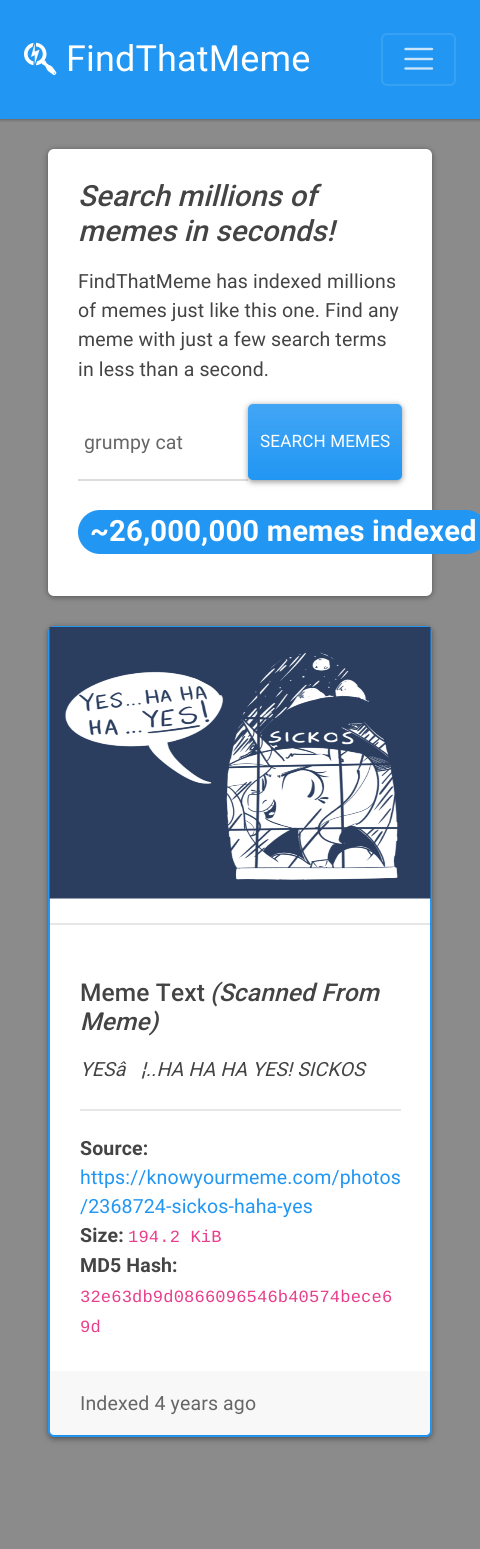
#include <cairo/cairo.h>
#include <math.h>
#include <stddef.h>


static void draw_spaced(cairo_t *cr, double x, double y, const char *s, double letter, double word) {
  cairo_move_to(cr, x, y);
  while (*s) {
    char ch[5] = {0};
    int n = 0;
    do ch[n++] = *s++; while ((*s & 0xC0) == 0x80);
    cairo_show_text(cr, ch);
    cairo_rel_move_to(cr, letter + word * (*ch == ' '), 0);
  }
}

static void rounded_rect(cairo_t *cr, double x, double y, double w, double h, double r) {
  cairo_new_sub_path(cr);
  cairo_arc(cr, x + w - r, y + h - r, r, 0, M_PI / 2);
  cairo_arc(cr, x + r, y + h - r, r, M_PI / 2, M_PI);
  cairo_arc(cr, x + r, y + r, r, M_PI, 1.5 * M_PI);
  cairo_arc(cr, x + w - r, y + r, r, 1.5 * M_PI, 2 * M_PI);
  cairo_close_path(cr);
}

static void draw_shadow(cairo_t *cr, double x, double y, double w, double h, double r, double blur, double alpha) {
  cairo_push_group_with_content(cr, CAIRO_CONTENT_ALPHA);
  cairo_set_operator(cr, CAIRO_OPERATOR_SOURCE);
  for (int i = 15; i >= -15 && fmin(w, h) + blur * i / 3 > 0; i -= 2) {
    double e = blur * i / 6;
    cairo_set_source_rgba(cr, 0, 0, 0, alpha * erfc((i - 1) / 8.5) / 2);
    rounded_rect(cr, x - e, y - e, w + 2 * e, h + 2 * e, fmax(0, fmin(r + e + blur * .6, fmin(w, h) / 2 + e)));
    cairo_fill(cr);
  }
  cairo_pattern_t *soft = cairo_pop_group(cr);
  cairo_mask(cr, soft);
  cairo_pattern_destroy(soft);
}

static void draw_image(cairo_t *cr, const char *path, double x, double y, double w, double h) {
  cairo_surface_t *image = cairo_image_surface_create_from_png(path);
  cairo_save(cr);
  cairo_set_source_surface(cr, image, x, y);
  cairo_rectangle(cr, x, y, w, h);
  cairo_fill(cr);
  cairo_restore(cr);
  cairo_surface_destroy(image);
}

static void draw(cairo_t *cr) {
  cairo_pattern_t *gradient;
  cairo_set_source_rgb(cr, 139 / 255.0, 139 / 255.0, 139 / 255.0);
  cairo_paint(cr);
  cairo_set_source_rgb(cr, 0, 0, 0);
  draw_shadow(cr, 0, 2, 480, 118, 0, 1.5, 0.3);
  cairo_set_source_rgb(cr, 33 / 255.0, 150 / 255.0, 243 / 255.0);
  cairo_rectangle(cr, 0, 0, 480, 119);
  cairo_fill(cr);
  draw_image(cr, "images/1.png", 24, 42, 33, 34);
  rounded_rect(cr, 382, 34, 73, 51, 5);
  cairo_set_source_rgb(cr, 55 / 255.0, 161 / 255.0, 244 / 255.0);
  cairo_stroke(cr);
  cairo_new_path(cr);
  cairo_move_to(cr, 405.5, 49);
  cairo_line_to(cr, 432, 49);
  cairo_move_to(cr, 405.5, 59);
  cairo_line_to(cr, 432, 59);
  cairo_move_to(cr, 405.5, 68.5);
  cairo_line_to(cr, 432, 68.5);
  cairo_set_source_rgb(cr, 200 / 255.0, 229 / 255.0, 252 / 255.0);
  cairo_set_line_width(cr, 2.4);
  cairo_set_line_cap(cr, CAIRO_LINE_CAP_ROUND);
  cairo_stroke(cr);
  cairo_set_source_rgb(cr, 0, 0, 0);
  draw_shadow(cr, 48, 150, 384, 447, 6, 3, 0.4);
  cairo_set_source_rgb(cr, 1, 1, 1);
  rounded_rect(cr, 48, 149, 384, 447, 6);
  cairo_fill(cr);
  cairo_set_source_rgb(cr, 221 / 255.0, 221 / 255.0, 221 / 255.0);
  cairo_rectangle(cr, 78, 479, 170, 2);
  cairo_fill(cr);
  cairo_set_source_rgb(cr, 0, 0, 0);
  draw_shadow(cr, 248, 405, 154, 77, 5, 3, 0.4);
  gradient = cairo_pattern_create_linear(325, 404, 325, 480);
  cairo_pattern_add_color_stop_rgba(gradient, 0, 66 / 255.0, 166 / 255.0, 245 / 255.0, 1);
  cairo_pattern_add_color_stop_rgba(gradient, 1, 33 / 255.0, 150 / 255.0, 243 / 255.0, 1);
  cairo_set_source(cr, gradient);
  cairo_pattern_destroy(gradient);
  rounded_rect(cr, 248, 404, 154, 76, 5);
  cairo_fill(cr);
  cairo_set_source_rgb(cr, 33 / 255.0, 150 / 255.0, 243 / 255.0);
  rounded_rect(cr, 78, 510, 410, 44, 22);
  cairo_fill(cr);
  cairo_set_source_rgb(cr, 0, 0, 0);
  draw_shadow(cr, 48, 627, 384, 812, 6, 3, 0.4);
  cairo_set_source_rgb(cr, 1, 1, 1);
  rounded_rect(cr, 49, 627, 382, 809, 5);
  cairo_fill_preserve(cr);
  cairo_set_source_rgb(cr, 33 / 255.0, 150 / 255.0, 243 / 255.0);
  cairo_set_line_width(cr, 2);
  cairo_set_line_cap(cr, CAIRO_LINE_CAP_BUTT);
  cairo_stroke(cr);
  draw_image(cr, "images/2.png", 49, 627, 382, 272);
  cairo_set_source_rgba(cr, 0, 0, 0, 0.1);
  cairo_rectangle(cr, 50, 923, 381, 2);
  cairo_fill(cr);
  cairo_set_source_rgb(cr, 230 / 255.0, 230 / 255.0, 230 / 255.0);
  cairo_rectangle(cr, 80, 1109, 321, 2);
  cairo_fill(cr);
  cairo_set_source_rgba(cr, 0, 0, 0, 0.03);
  cairo_rectangle(cr, 50, 1371, 381, 65);
  cairo_fill(cr);
  cairo_select_font_face(cr, "Roboto", CAIRO_FONT_SLANT_NORMAL, CAIRO_FONT_WEIGHT_NORMAL);
  cairo_set_font_size(cr, 36);
  cairo_set_source_rgb(cr, 1, 1, 1);
  draw_spaced(cr, 66, 71, "FindThatMeme", 0.15, 0);
  cairo_select_font_face(cr, "Roboto Medium", CAIRO_FONT_SLANT_ITALIC, CAIRO_FONT_WEIGHT_NORMAL);
  cairo_set_font_size(cr, 29.25);
  cairo_set_source_rgb(cr, 68 / 255.0, 68 / 255.0, 68 / 255.0);
  draw_spaced(cr, 78, 206, "Search millions of", 0.15, 0);
  draw_spaced(cr, 78, 241, "memes in seconds!", 0.15, 0);
  cairo_select_font_face(cr, "Roboto", CAIRO_FONT_SLANT_NORMAL, CAIRO_FONT_WEIGHT_NORMAL);
  cairo_set_font_size(cr, 19.5);
  draw_spaced(cr, 78, 288, "FindThatMeme has indexed millions", 0.15, 0);
  draw_spaced(cr, 78, 317, "of memes just like this one. Find any", 0.15, 0);
  draw_spaced(cr, 78, 346, "meme with just a few search terms", 0.15, 0);
  draw_spaced(cr, 78, 376, "in less than a second.", 0.15, 0);
  cairo_set_source_rgb(cr, 102 / 255.0, 102 / 255.0, 102 / 255.0);
  draw_spaced(cr, 84, 449, "grumpy cat", 0.15, 0);
  cairo_set_font_size(cr, 17.1);
  cairo_set_source_rgb(cr, 1, 1, 1);
  draw_spaced(cr, 260, 447, "SEARCH MEMES", 0.15, 0);
  cairo_select_font_face(cr, "Roboto", CAIRO_FONT_SLANT_NORMAL, CAIRO_FONT_WEIGHT_BOLD);
  cairo_set_font_size(cr, 29.25);
  draw_spaced(cr, 90, 541, "~26,000,000 memes indexed", 0.15, 0);
  cairo_select_font_face(cr, "Roboto Medium", CAIRO_FONT_SLANT_NORMAL, CAIRO_FONT_WEIGHT_NORMAL);
  cairo_set_font_size(cr, 24.5);
  cairo_set_source_rgb(cr, 68 / 255.0, 68 / 255.0, 68 / 255.0);
  draw_spaced(cr, 80, 1001, "Meme Text", 0.15, 0);
  cairo_select_font_face(cr, "Roboto Medium", CAIRO_FONT_SLANT_ITALIC, CAIRO_FONT_WEIGHT_NORMAL);
  draw_spaced(cr, 210, 1001, "(Scanned From", 0.15, 0);
  draw_spaced(cr, 80, 1030, "Meme)", 0.15, 0);
  cairo_select_font_face(cr, "Roboto", CAIRO_FONT_SLANT_ITALIC, CAIRO_FONT_WEIGHT_NORMAL);
  cairo_set_font_size(cr, 19.5);
  draw_spaced(cr, 80, 1076, "YESâ", 0.15, 0);
  draw_spaced(cr, 141, 1076, "¦..HA HA HA YES! SICKOS", 0.15, 0);
  cairo_select_font_face(cr, "Roboto", CAIRO_FONT_SLANT_NORMAL, CAIRO_FONT_WEIGHT_BOLD);
  draw_spaced(cr, 80, 1155, "Source:", 0.15, 0);
  cairo_select_font_face(cr, "Roboto", CAIRO_FONT_SLANT_NORMAL, CAIRO_FONT_WEIGHT_NORMAL);
  cairo_set_source_rgb(cr, 33 / 255.0, 150 / 255.0, 243 / 255.0);
  draw_spaced(cr, 80, 1184, "https://knowyourmeme.com/photos", 0.15, 0);
  draw_spaced(cr, 80, 1213, "/2368724-sickos-haha-yes", 0.15, 0);
  cairo_select_font_face(cr, "Roboto", CAIRO_FONT_SLANT_NORMAL, CAIRO_FONT_WEIGHT_BOLD);
  cairo_set_source_rgb(cr, 68 / 255.0, 68 / 255.0, 68 / 255.0);
  draw_spaced(cr, 80, 1242, "Size:", 0.15, 0);
  cairo_select_font_face(cr, "Liberation Mono", CAIRO_FONT_SLANT_NORMAL, CAIRO_FONT_WEIGHT_NORMAL);
  cairo_set_font_size(cr, 17.1);
  cairo_set_source_rgb(cr, 232 / 255.0, 62 / 255.0, 140 / 255.0);
  draw_spaced(cr, 128, 1242, "194.2 KiB", 0.15, 0);
  cairo_select_font_face(cr, "Roboto", CAIRO_FONT_SLANT_NORMAL, CAIRO_FONT_WEIGHT_BOLD);
  cairo_set_font_size(cr, 19.5);
  cairo_set_source_rgb(cr, 68 / 255.0, 68 / 255.0, 68 / 255.0);
  draw_spaced(cr, 80, 1272, "MD5 Hash:", 0.15, 0);
  cairo_select_font_face(cr, "Liberation Mono", CAIRO_FONT_SLANT_NORMAL, CAIRO_FONT_WEIGHT_NORMAL);
  cairo_set_font_size(cr, 17.1);
  cairo_set_source_rgb(cr, 232 / 255.0, 62 / 255.0, 140 / 255.0);
  draw_spaced(cr, 80, 1302, "32e63db9d0866096546b40574bece6", 0.15, 0);
  draw_spaced(cr, 80, 1332, "9d", 0.15, 0);
  cairo_select_font_face(cr, "Roboto", CAIRO_FONT_SLANT_NORMAL, CAIRO_FONT_WEIGHT_NORMAL);
  cairo_set_font_size(cr, 19.5);
  cairo_set_source_rgb(cr, 102 / 255.0, 102 / 255.0, 102 / 255.0);
  draw_spaced(cr, 80, 1410, "Indexed 4 years ago", 0.15, 0);
}

int main(void) {
  cairo_surface_t *surface = cairo_image_surface_create(CAIRO_FORMAT_RGB24, 480, 1549);
  cairo_t *cr = cairo_create(surface);
  cairo_font_options_t *options = cairo_font_options_create();
  cairo_font_options_set_hint_metrics(options, CAIRO_HINT_METRICS_OFF);
  cairo_font_options_set_hint_style(options, CAIRO_HINT_STYLE_NONE);
  cairo_set_font_options(cr, options);
  cairo_set_miter_limit(cr, 4);
  draw(cr);
  cairo_surface_write_to_png(surface, "out.png");
  cairo_font_options_destroy(options);
  cairo_destroy(cr);
  cairo_surface_destroy(surface);
  return 0;
}
